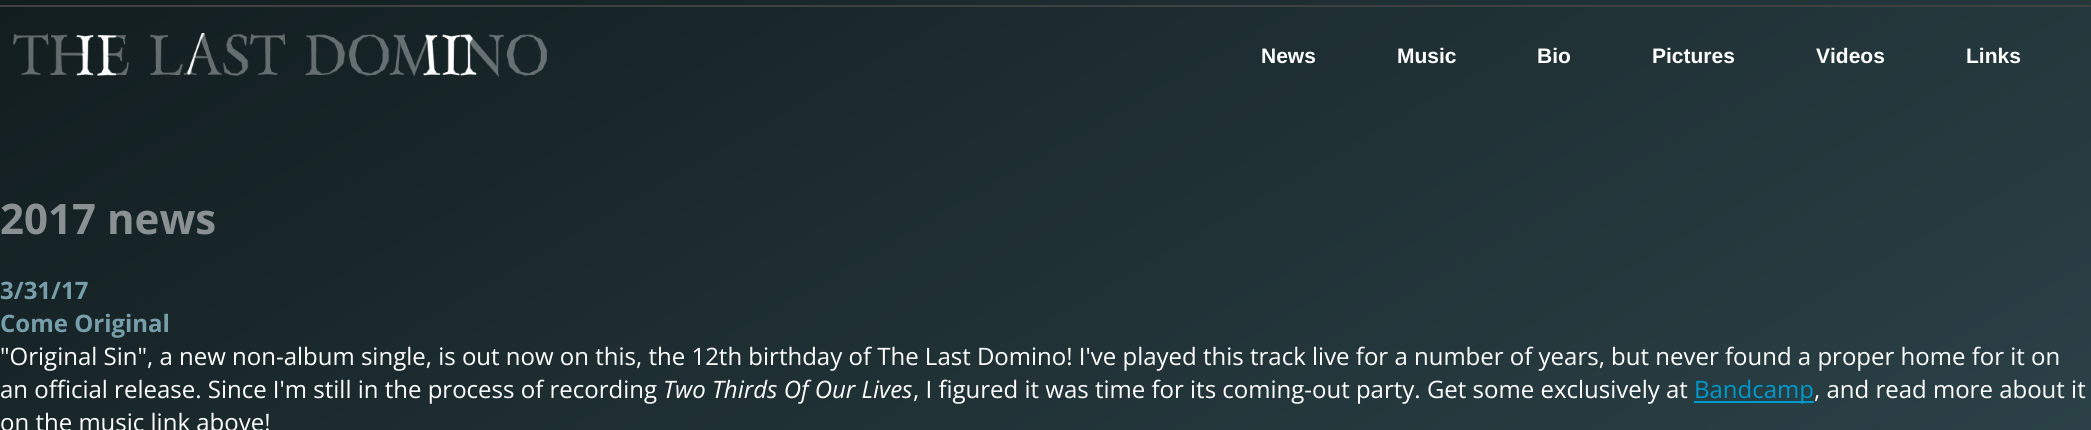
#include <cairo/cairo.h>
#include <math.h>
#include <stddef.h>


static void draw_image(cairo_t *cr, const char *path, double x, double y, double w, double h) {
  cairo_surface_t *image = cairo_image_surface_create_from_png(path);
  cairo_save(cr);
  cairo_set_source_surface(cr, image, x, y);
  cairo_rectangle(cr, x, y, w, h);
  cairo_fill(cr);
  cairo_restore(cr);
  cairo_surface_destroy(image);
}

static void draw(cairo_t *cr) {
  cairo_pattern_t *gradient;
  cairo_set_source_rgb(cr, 1, 1, 1);
  cairo_paint(cr);
  gradient = cairo_pattern_create_linear(362, -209, 1729, 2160);
  cairo_pattern_add_color_stop_rgba(gradient, 0, 18 / 255.0, 29 / 255.0, 31 / 255.0, 1);
  cairo_pattern_add_color_stop_rgba(gradient, 1, 66 / 255.0, 99 / 255.0, 108 / 255.0, 1);
  cairo_set_source(cr, gradient);
  cairo_pattern_destroy(gradient);
  cairo_rectangle(cr, 0, 0, 2091, 430);
  cairo_fill(cr);
  cairo_set_source_rgb(cr, 64 / 255.0, 64 / 255.0, 64 / 255.0);
  cairo_rectangle(cr, 0, 5, 2091, 2);
  cairo_fill(cr);
  draw_image(cr, "images/1.png", 13, 33, 534, 44);
  cairo_set_source_rgb(cr, 0, 153 / 255.0, 204 / 255.0);
  cairo_rectangle(cr, 1694, 401, 120, 2);
  cairo_fill(cr);
  cairo_select_font_face(cr, "Liberation Sans", CAIRO_FONT_SLANT_NORMAL, CAIRO_FONT_WEIGHT_BOLD);
  cairo_set_font_size(cr, 21);
  cairo_set_source_rgb(cr, 1, 1, 1);
  cairo_move_to(cr, 1261, 63);
  cairo_show_text(cr, "News");
  cairo_move_to(cr, 1397, 63);
  cairo_show_text(cr, "Music");
  cairo_move_to(cr, 1537, 63);
  cairo_show_text(cr, "Bio");
  cairo_move_to(cr, 1652, 63);
  cairo_show_text(cr, "Pictures");
  cairo_move_to(cr, 1816, 63);
  cairo_show_text(cr, "Videos");
  cairo_move_to(cr, 1966, 63);
  cairo_show_text(cr, "Links");
  cairo_select_font_face(cr, "Open Sans", CAIRO_FONT_SLANT_NORMAL, CAIRO_FONT_WEIGHT_BOLD);
  cairo_set_font_size(cr, 42);
  cairo_set_source_rgb(cr, 139 / 255.0, 145 / 255.0, 146 / 255.0);
  cairo_move_to(cr, 0, 234);
  cairo_show_text(cr, "2017 news");
  cairo_set_font_size(cr, 24);
  cairo_set_source_rgb(cr, 119 / 255.0, 159 / 255.0, 171 / 255.0);
  cairo_move_to(cr, 0, 299);
  cairo_show_text(cr, "3/31/17");
  cairo_move_to(cr, 0, 332);
  cairo_show_text(cr, "Come Original");
  cairo_select_font_face(cr, "Open Sans", CAIRO_FONT_SLANT_NORMAL, CAIRO_FONT_WEIGHT_NORMAL);
  cairo_set_source_rgb(cr, 1, 1, 1);
  cairo_move_to(cr, 0, 365);
  cairo_show_text(cr, "\"Original Sin\", a new non-album single, is out now on this, the 12th birthday of The Last Domino! I've played this track live for a number of years, but never found a proper home for it on");
  cairo_move_to(cr, 0, 398);
  cairo_show_text(cr, "an official release. Since I'm still in the process of recording");
  cairo_select_font_face(cr, "Open Sans", CAIRO_FONT_SLANT_ITALIC, CAIRO_FONT_WEIGHT_NORMAL);
  cairo_move_to(cr, 663, 398);
  cairo_show_text(cr, "Two Thirds Of Our Lives");
  cairo_select_font_face(cr, "Open Sans", CAIRO_FONT_SLANT_NORMAL, CAIRO_FONT_WEIGHT_NORMAL);
  cairo_move_to(cr, 913, 398);
  cairo_show_text(cr, ", I figured it was time for its coming-out party. Get some exclusively at");
  cairo_set_source_rgb(cr, 0, 153 / 255.0, 204 / 255.0);
  cairo_move_to(cr, 1694, 398);
  cairo_show_text(cr, "Bandcamp");
  cairo_set_source_rgb(cr, 1, 1, 1);
  cairo_move_to(cr, 1814, 398);
  cairo_show_text(cr, ", and read more about it");
  cairo_move_to(cr, 0, 431);
  cairo_show_text(cr, "on the music link above!");
}

int main(void) {
  cairo_surface_t *surface = cairo_image_surface_create(CAIRO_FORMAT_RGB24, 2091, 430);
  cairo_t *cr = cairo_create(surface);
  cairo_font_options_t *options = cairo_font_options_create();
  cairo_font_options_set_hint_metrics(options, CAIRO_HINT_METRICS_OFF);
  cairo_font_options_set_hint_style(options, CAIRO_HINT_STYLE_NONE);
  cairo_set_font_options(cr, options);
  cairo_set_miter_limit(cr, 4);
  draw(cr);
  cairo_surface_write_to_png(surface, "out.png");
  cairo_font_options_destroy(options);
  cairo_destroy(cr);
  cairo_surface_destroy(surface);
  return 0;
}
